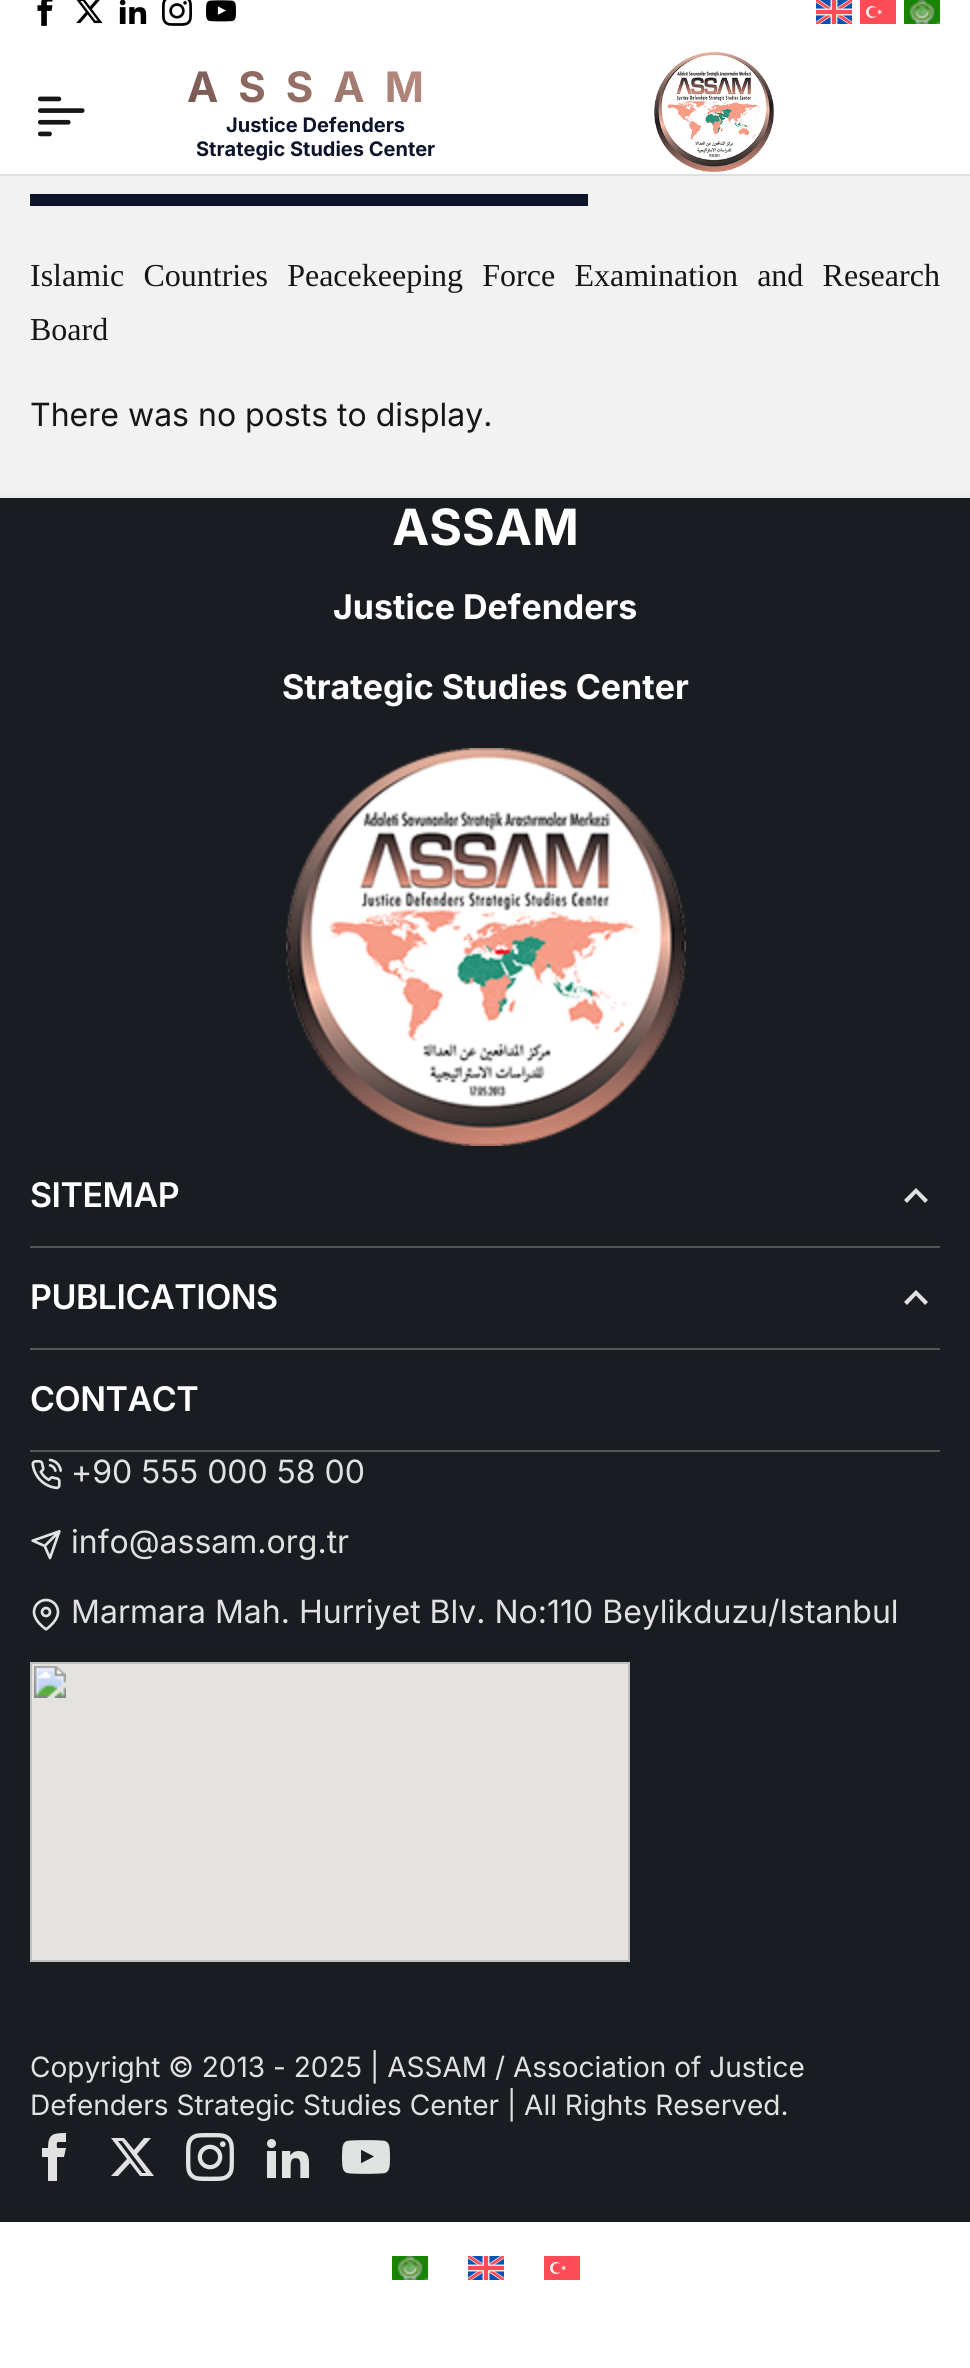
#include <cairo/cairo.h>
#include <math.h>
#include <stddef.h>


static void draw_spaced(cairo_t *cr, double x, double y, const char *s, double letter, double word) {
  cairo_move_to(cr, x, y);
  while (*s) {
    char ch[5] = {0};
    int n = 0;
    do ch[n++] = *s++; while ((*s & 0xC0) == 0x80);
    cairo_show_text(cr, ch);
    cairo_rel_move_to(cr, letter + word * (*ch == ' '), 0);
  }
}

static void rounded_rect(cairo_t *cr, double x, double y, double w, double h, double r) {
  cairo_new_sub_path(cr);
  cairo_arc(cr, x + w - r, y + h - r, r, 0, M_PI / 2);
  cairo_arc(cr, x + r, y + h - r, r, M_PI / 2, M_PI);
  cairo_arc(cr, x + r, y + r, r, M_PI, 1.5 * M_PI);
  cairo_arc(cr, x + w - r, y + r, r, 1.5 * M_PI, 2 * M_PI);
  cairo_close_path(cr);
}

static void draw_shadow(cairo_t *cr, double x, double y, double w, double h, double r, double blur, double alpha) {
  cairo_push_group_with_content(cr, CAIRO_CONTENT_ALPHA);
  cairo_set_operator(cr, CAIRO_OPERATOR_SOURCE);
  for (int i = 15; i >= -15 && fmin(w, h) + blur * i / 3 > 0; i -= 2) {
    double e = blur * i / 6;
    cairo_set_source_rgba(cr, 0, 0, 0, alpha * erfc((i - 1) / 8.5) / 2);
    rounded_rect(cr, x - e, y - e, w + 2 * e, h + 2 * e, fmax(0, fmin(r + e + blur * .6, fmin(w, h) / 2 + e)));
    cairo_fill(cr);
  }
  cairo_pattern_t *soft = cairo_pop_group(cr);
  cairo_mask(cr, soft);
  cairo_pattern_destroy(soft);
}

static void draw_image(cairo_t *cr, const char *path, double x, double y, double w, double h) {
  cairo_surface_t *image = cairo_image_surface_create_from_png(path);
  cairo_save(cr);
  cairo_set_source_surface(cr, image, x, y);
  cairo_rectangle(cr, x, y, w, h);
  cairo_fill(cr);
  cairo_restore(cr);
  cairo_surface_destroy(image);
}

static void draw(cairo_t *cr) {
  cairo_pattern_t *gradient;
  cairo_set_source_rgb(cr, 1, 1, 1);
  cairo_paint(cr);
  cairo_set_source_rgb(cr, 242 / 255.0, 242 / 255.0, 243 / 255.0);
  cairo_rectangle(cr, 0, 176, 970, 322);
  cairo_fill(cr);
  draw_image(cr, "images/1.png", 37, 0, 16, 26);
  draw_image(cr, "images/2.png", 76, 0, 27, 24);
  draw_image(cr, "images/3.png", 119, 0, 28, 24);
  draw_image(cr, "images/4.png", 162, 0, 30, 26);
  draw_image(cr, "images/5.png", 206, 0, 30, 22);
  draw_image(cr, "images/6.png", 816, 0, 36, 24);
  draw_image(cr, "images/7.png", 860, 0, 36, 24);
  draw_image(cr, "images/8.png", 904, 0, 36, 24);
  cairo_set_source_rgb(cr, 222 / 255.0, 223 / 255.0, 226 / 255.0);
  cairo_rectangle(cr, 0, 174, 970, 2);
  cairo_fill(cr);
  draw_image(cr, "images/9.png", 37, 96, 48, 41);
  draw_image(cr, "images/10.png", 654, 52, 120, 120);
  cairo_set_source_rgb(cr, 14 / 255.0, 21 / 255.0, 43 / 255.0);
  cairo_rectangle(cr, 30, 194, 558, 12);
  cairo_fill(cr);
  cairo_save(cr);
  cairo_rectangle(cr, 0, 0, 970, 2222);
  cairo_clip(cr);
  cairo_set_source_rgb(cr, 50 / 255.0, 53 / 255.0, 61 / 255.0);
  draw_shadow(cr, 0, 498, 970, 1724, 0, 5, 0.1);
  cairo_restore(cr);
  cairo_set_source_rgb(cr, 25 / 255.0, 28 / 255.0, 32 / 255.0);
  cairo_rectangle(cr, 0, 498, 970, 1724);
  cairo_fill(cr);
  draw_image(cr, "images/11.png", 286, 748, 400, 398);
  cairo_set_source_rgb(cr, 83 / 255.0, 85 / 255.0, 88 / 255.0);
  cairo_rectangle(cr, 30, 1246, 910, 2);
  cairo_fill(cr);
  cairo_set_source_rgb(cr, 225 / 255.0, 225 / 255.0, 226 / 255.0);
  cairo_new_path(cr);
  cairo_move_to(cr, 907, 1203);
  cairo_line_to(cr, 904, 1200);
  cairo_line_to(cr, 916, 1188);
  cairo_line_to(cr, 928, 1200);
  cairo_line_to(cr, 925, 1203);
  cairo_line_to(cr, 916, 1193.5);
  cairo_close_path(cr);
  cairo_fill(cr);
  cairo_set_source_rgb(cr, 83 / 255.0, 85 / 255.0, 88 / 255.0);
  cairo_rectangle(cr, 30, 1348, 910, 2);
  cairo_fill(cr);
  cairo_set_source_rgb(cr, 225 / 255.0, 225 / 255.0, 226 / 255.0);
  cairo_new_path(cr);
  cairo_move_to(cr, 907, 1305);
  cairo_line_to(cr, 904, 1302);
  cairo_line_to(cr, 916, 1290);
  cairo_line_to(cr, 928, 1302);
  cairo_line_to(cr, 925, 1305);
  cairo_line_to(cr, 916, 1295.5);
  cairo_close_path(cr);
  cairo_fill(cr);
  cairo_set_source_rgb(cr, 83 / 255.0, 85 / 255.0, 88 / 255.0);
  cairo_rectangle(cr, 30, 1450, 910, 2);
  cairo_fill(cr);
  draw_image(cr, "images/12.png", 31, 1458, 31, 32);
  draw_image(cr, "images/13.png", 31, 1530, 30, 30);
  draw_image(cr, "images/14.png", 32, 1598, 28, 33);
  draw_image(cr, "images/15.png", 30, 1662, 600, 300);
  cairo_set_source_rgb(cr, 225 / 255.0, 225 / 255.0, 226 / 255.0);
  cairo_new_path(cr);
  cairo_move_to(cr, 58, 2142);
  cairo_line_to(cr, 66, 2142);
  cairo_line_to(cr, 66, 2133);
  cairo_curve_to(cr, 53, 2133, 48, 2134, 48, 2148);
  cairo_line_to(cr, 42, 2148);
  cairo_line_to(cr, 42, 2157);
  cairo_line_to(cr, 48, 2157);
  cairo_line_to(cr, 48, 2181);
  cairo_line_to(cr, 57, 2181);
  cairo_line_to(cr, 57, 2157);
  cairo_line_to(cr, 64, 2157);
  cairo_line_to(cr, 66, 2148);
  cairo_line_to(cr, 57, 2148);
  cairo_curve_to(cr, 57, 2147, 56, 2142, 58, 2142);
  cairo_close_path(cr);
  cairo_fill(cr);
  cairo_new_path(cr);
  cairo_move_to(cr, 144, 2138);
  cairo_line_to(cr, 151, 2138);
  cairo_line_to(cr, 137, 2154);
  cairo_line_to(cr, 154, 2176);
  cairo_line_to(cr, 140, 2176);
  cairo_line_to(cr, 130, 2163);
  cairo_line_to(cr, 118, 2176);
  cairo_line_to(cr, 111, 2176);
  cairo_line_to(cr, 127, 2159);
  cairo_line_to(cr, 111, 2138);
  cairo_line_to(cr, 124, 2138);
  cairo_line_to(cr, 134, 2150);
  cairo_close_path(cr);
  cairo_move_to(cr, 142, 2173);
  cairo_line_to(cr, 146, 2173);
  cairo_line_to(cr, 122, 2141);
  cairo_line_to(cr, 118, 2141);
  cairo_close_path(cr);
  cairo_fill(cr);
  draw_image(cr, "images/16.png", 186, 2133, 48, 48);
  draw_image(cr, "images/17.png", 267, 2139, 42, 39);
  draw_image(cr, "images/18.png", 342, 2140, 48, 34);
  draw_image(cr, "images/8.png", 392, 2256, 36, 24);
  draw_image(cr, "images/6.png", 468, 2256, 36, 24);
  draw_image(cr, "images/7.png", 544, 2256, 36, 24);
  cairo_select_font_face(cr, "Inter", CAIRO_FONT_SLANT_NORMAL, CAIRO_FONT_WEIGHT_BOLD);
  cairo_set_font_size(cr, 42);
  gradient = cairo_pattern_create_linear(414, -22, 217, 196);
  cairo_pattern_add_color_stop_rgba(gradient, 0, 206 / 255.0, 158 / 255.0, 144 / 255.0, 1);
  cairo_pattern_add_color_stop_rgba(gradient, 1, 102 / 255.0, 74 / 255.0, 70 / 255.0, 1);
  cairo_set_source(cr, gradient);
  cairo_pattern_destroy(gradient);
  draw_spaced(cr, 187, 102, "ASSAM", 20, 0);
  cairo_set_font_size(cr, 20);
  cairo_set_source_rgb(cr, 14 / 255.0, 21 / 255.0, 43 / 255.0);
  cairo_move_to(cr, 226, 132);
  cairo_show_text(cr, "Justice Defenders");
  cairo_move_to(cr, 196, 156);
  cairo_show_text(cr, "Strategic Studies Center");
  cairo_select_font_face(cr, "Liberation Serif", CAIRO_FONT_SLANT_NORMAL, CAIRO_FONT_WEIGHT_NORMAL);
  cairo_set_font_size(cr, 32);
  cairo_set_source_rgb(cr, 22 / 255.0, 22 / 255.0, 22 / 255.0);
  draw_spaced(cr, 30, 286, "Islamic Countries Peacekeeping Force Examination and Research", 0, 11.25);
  cairo_move_to(cr, 30, 340);
  cairo_show_text(cr, "Board");
  cairo_select_font_face(cr, "Inter", CAIRO_FONT_SLANT_NORMAL, CAIRO_FONT_WEIGHT_NORMAL);
  cairo_move_to(cr, 30, 426);
  cairo_show_text(cr, "There was no posts to display.");
  cairo_select_font_face(cr, "Inter", CAIRO_FONT_SLANT_NORMAL, CAIRO_FONT_WEIGHT_BOLD);
  cairo_set_font_size(cr, 50);
  cairo_set_source_rgb(cr, 1, 1, 1);
  cairo_move_to(cr, 392, 545);
  cairo_show_text(cr, "ASSAM");
  cairo_set_font_size(cr, 34);
  cairo_move_to(cr, 333, 619);
  cairo_show_text(cr, "Justice Defenders");
  cairo_move_to(cr, 282, 699);
  cairo_show_text(cr, "Strategic Studies Center");
  cairo_select_font_face(cr, "Inter SemiBold", CAIRO_FONT_SLANT_NORMAL, CAIRO_FONT_WEIGHT_NORMAL);
  draw_spaced(cr, 30, 1207, "SITEMAP", -0.5, 0);
  draw_spaced(cr, 30, 1309, "PUBLICATIONS", -0.5, 0);
  draw_spaced(cr, 30, 1411, "CONTACT", -0.5, 0);
  cairo_select_font_face(cr, "Inter", CAIRO_FONT_SLANT_NORMAL, CAIRO_FONT_WEIGHT_NORMAL);
  cairo_set_font_size(cr, 32);
  cairo_set_source_rgb(cr, 225 / 255.0, 225 / 255.0, 226 / 255.0);
  cairo_move_to(cr, 71, 1483);
  cairo_show_text(cr, "+90 555 000 58 00");
  cairo_move_to(cr, 71, 1553);
  cairo_show_text(cr, "info@assam.org.tr");
  cairo_move_to(cr, 71, 1623);
  cairo_show_text(cr, "Marmara Mah. Hurriyet Blv. No:110 Beylikduzu/Istanbul");
  cairo_set_font_size(cr, 28);
  cairo_move_to(cr, 30, 2077);
  cairo_show_text(cr, "Copyright © 2013 - 2025 | ASSAM / Association of Justice");
  cairo_move_to(cr, 30, 2115);
  cairo_show_text(cr, "Defenders Strategic Studies Center | All Rights Reserved.");
}

int main(void) {
  cairo_surface_t *surface = cairo_image_surface_create(CAIRO_FORMAT_RGB24, 970, 2368);
  cairo_t *cr = cairo_create(surface);
  cairo_font_options_t *options = cairo_font_options_create();
  cairo_font_options_set_hint_metrics(options, CAIRO_HINT_METRICS_OFF);
  cairo_font_options_set_hint_style(options, CAIRO_HINT_STYLE_NONE);
  cairo_set_font_options(cr, options);
  cairo_set_miter_limit(cr, 4);
  draw(cr);
  cairo_surface_write_to_png(surface, "out.png");
  cairo_font_options_destroy(options);
  cairo_destroy(cr);
  cairo_surface_destroy(surface);
  return 0;
}
